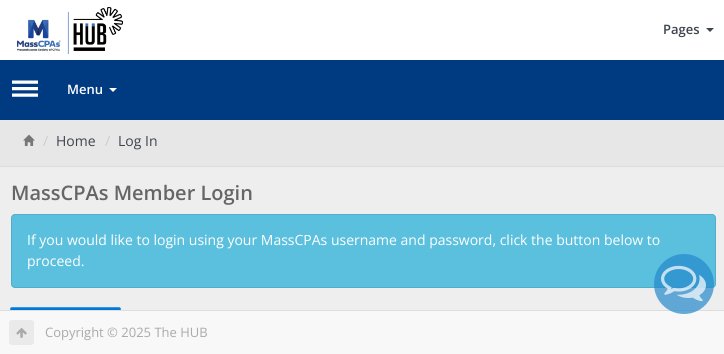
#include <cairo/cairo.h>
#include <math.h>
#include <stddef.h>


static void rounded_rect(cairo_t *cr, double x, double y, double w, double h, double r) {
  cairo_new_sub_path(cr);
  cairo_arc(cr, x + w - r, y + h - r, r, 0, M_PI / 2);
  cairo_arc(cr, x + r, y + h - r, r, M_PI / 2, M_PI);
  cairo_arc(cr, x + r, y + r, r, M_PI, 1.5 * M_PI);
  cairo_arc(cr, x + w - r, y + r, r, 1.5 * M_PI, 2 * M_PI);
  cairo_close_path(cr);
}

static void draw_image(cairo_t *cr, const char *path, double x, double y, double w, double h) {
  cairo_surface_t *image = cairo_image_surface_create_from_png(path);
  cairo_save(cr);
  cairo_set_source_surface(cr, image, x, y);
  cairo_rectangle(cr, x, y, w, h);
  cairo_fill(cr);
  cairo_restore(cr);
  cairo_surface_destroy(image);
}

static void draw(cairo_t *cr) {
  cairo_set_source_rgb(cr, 238 / 255.0, 238 / 255.0, 238 / 255.0);
  cairo_paint(cr);
  cairo_set_source_rgb(cr, 0, 59 / 255.0, 130 / 255.0);
  cairo_rectangle(cr, 0, 60, 724, 60);
  cairo_fill(cr);
  cairo_set_source_rgb(cr, 1, 1, 1);
  cairo_rectangle(cr, 0, 0, 724, 60);
  cairo_fill(cr);
  draw_image(cr, "images/1.png", 16, 7, 108, 47);
  cairo_set_source_rgb(cr, 61 / 255.0, 69 / 255.0, 77 / 255.0);
  cairo_new_path(cr);
  cairo_move_to(cr, 706, 28);
  cairo_line_to(cr, 714, 28);
  cairo_line_to(cr, 710, 32);
  cairo_close_path(cr);
  cairo_fill(cr);
  draw_image(cr, "images/2.png", 12, 80, 26, 17);
  cairo_set_source_rgb(cr, 1, 1, 1);
  cairo_new_path(cr);
  cairo_move_to(cr, 109, 88);
  cairo_line_to(cr, 117, 88);
  cairo_line_to(cr, 113, 92);
  cairo_close_path(cr);
  cairo_fill(cr);
  cairo_set_source_rgb(cr, 231 / 255.0, 231 / 255.0, 231 / 255.0);
  cairo_rectangle(cr, 0, 120, 724, 46);
  cairo_fill(cr);
  cairo_set_source_rgb(cr, 221 / 255.0, 221 / 255.0, 221 / 255.0);
  cairo_rectangle(cr, 0, 166, 724, 1);
  cairo_fill(cr);
  draw_image(cr, "images/3.png", 23, 134, 12, 12);
  cairo_set_source_rgb(cr, 91 / 255.0, 192 / 255.0, 222 / 255.0);
  rounded_rect(cr, 11, 214, 705, 74, 4);
  cairo_fill(cr);
  rounded_rect(cr, 11.5, 214.5, 704, 73, 3.5);
  cairo_set_source_rgba(cr, 0, 0, 0, 0.1);
  cairo_set_line_width(cr, 1);
  cairo_stroke(cr);
  cairo_set_source_rgb(cr, 0, 120 / 255.0, 219 / 255.0);
  rounded_rect(cr, 10.5, 307.5, 110, 38, 1.5);
  cairo_fill_preserve(cr);
  cairo_set_source_rgb(cr, 52 / 255.0, 152 / 255.0, 219 / 255.0);
  cairo_stroke(cr);
  cairo_set_source_rgb(cr, 248 / 255.0, 248 / 255.0, 248 / 255.0);
  cairo_rectangle(cr, 0, 311, 724, 43);
  cairo_fill(cr);
  cairo_set_source_rgb(cr, 221 / 255.0, 221 / 255.0, 221 / 255.0);
  cairo_rectangle(cr, 0, 310, 724, 1);
  cairo_fill(cr);
  cairo_set_source_rgba(cr, 36 / 255.0, 137 / 255.0, 204 / 255.0, 0.7);
  cairo_arc(cr, 684, 284, 30, 0, 2 * M_PI);
  cairo_fill(cr);
  draw_image(cr, "images/4.png", 661, 265, 45, 37);
  cairo_set_source_rgb(cr, 234 / 255.0, 234 / 255.0, 234 / 255.0);
  rounded_rect(cr, 9, 320, 25, 25, 3);
  cairo_fill(cr);
  draw_image(cr, "images/5.png", 16, 328, 11, 10);
  cairo_select_font_face(cr, "Open Sans SemiBold", CAIRO_FONT_SLANT_NORMAL, CAIRO_FONT_WEIGHT_NORMAL);
  cairo_set_font_size(cr, 13);
  cairo_set_source_rgb(cr, 61 / 255.0, 69 / 255.0, 77 / 255.0);
  cairo_move_to(cr, 663, 34);
  cairo_show_text(cr, "Pages");
  cairo_set_source_rgb(cr, 1, 1, 1);
  cairo_move_to(cr, 67, 94);
  cairo_show_text(cr, "Menu");
  cairo_select_font_face(cr, "Open Sans", CAIRO_FONT_SLANT_NORMAL, CAIRO_FONT_WEIGHT_NORMAL);
  cairo_set_font_size(cr, 14);
  cairo_set_source_rgb(cr, 204 / 255.0, 204 / 255.0, 204 / 255.0);
  cairo_move_to(cr, 43, 146);
  cairo_show_text(cr, "/");
  cairo_set_source_rgb(cr, 61 / 255.0, 69 / 255.0, 77 / 255.0);
  cairo_move_to(cr, 56, 146);
  cairo_show_text(cr, "Home");
  cairo_set_source_rgb(cr, 204 / 255.0, 204 / 255.0, 204 / 255.0);
  cairo_move_to(cr, 105, 146);
  cairo_show_text(cr, "/");
  cairo_set_source_rgb(cr, 61 / 255.0, 69 / 255.0, 77 / 255.0);
  cairo_move_to(cr, 118, 146);
  cairo_show_text(cr, "Log In");
  cairo_select_font_face(cr, "Open Sans SemiBold", CAIRO_FONT_SLANT_NORMAL, CAIRO_FONT_WEIGHT_NORMAL);
  cairo_set_font_size(cr, 20);
  cairo_set_source_rgb(cr, 102 / 255.0, 102 / 255.0, 102 / 255.0);
  cairo_move_to(cr, 11, 200);
  cairo_show_text(cr, "MassCPAs Member Login");
  cairo_select_font_face(cr, "Open Sans", CAIRO_FONT_SLANT_NORMAL, CAIRO_FONT_WEIGHT_NORMAL);
  cairo_set_font_size(cr, 14);
  cairo_set_source_rgb(cr, 1, 1, 1);
  cairo_move_to(cr, 27, 245);
  cairo_show_text(cr, "If you would like to login using your MassCPAs username and password, click the button below to");
  cairo_move_to(cr, 27, 266);
  cairo_show_text(cr, "proceed.");
  cairo_set_font_size(cr, 13);
  cairo_set_source_rgb(cr, 170 / 255.0, 170 / 255.0, 170 / 255.0);
  cairo_move_to(cr, 45, 337);
  cairo_show_text(cr, "Copyright © 2025 The HUB");
}

int main(void) {
  cairo_surface_t *surface = cairo_image_surface_create(CAIRO_FORMAT_RGB24, 724, 354);
  cairo_t *cr = cairo_create(surface);
  cairo_font_options_t *options = cairo_font_options_create();
  cairo_font_options_set_hint_metrics(options, CAIRO_HINT_METRICS_OFF);
  cairo_font_options_set_hint_style(options, CAIRO_HINT_STYLE_NONE);
  cairo_set_font_options(cr, options);
  cairo_set_miter_limit(cr, 4);
  draw(cr);
  cairo_surface_write_to_png(surface, "out.png");
  cairo_font_options_destroy(options);
  cairo_destroy(cr);
  cairo_surface_destroy(surface);
  return 0;
}
